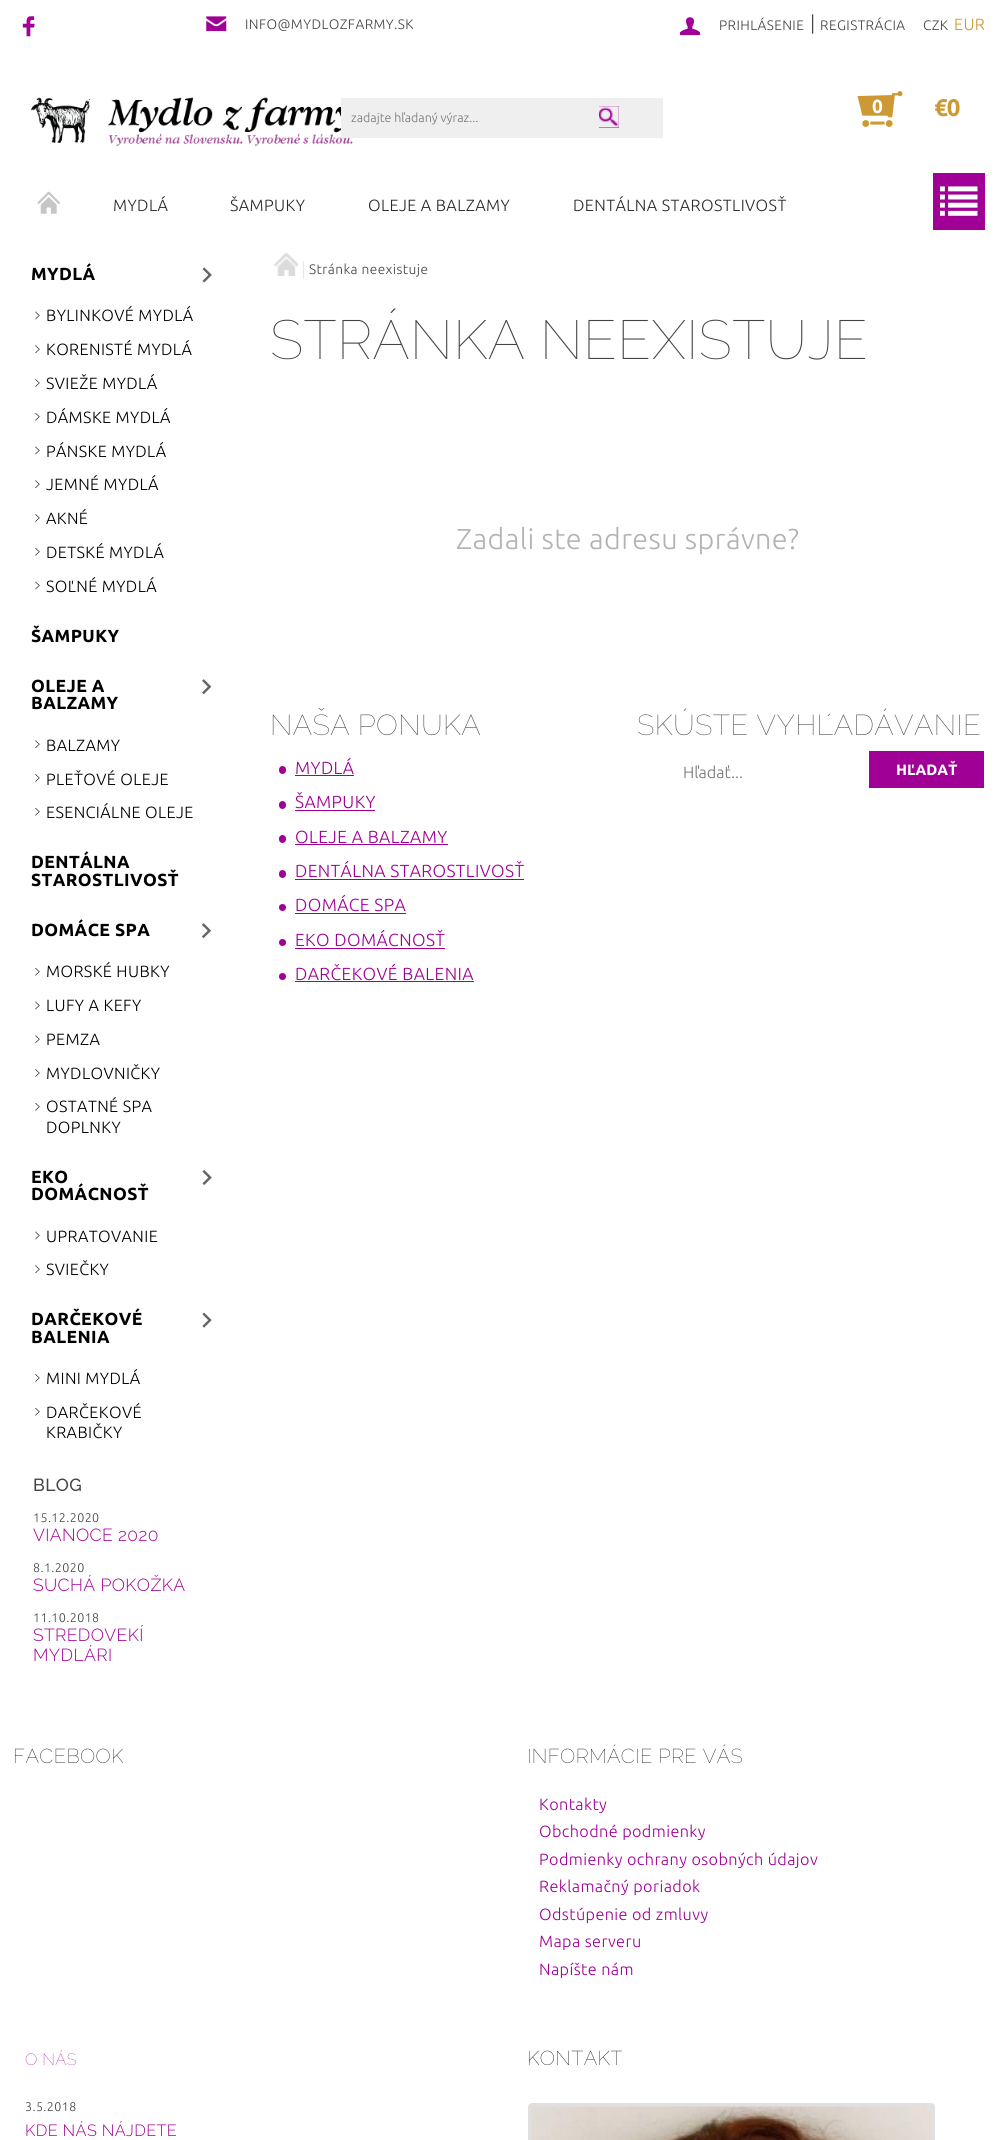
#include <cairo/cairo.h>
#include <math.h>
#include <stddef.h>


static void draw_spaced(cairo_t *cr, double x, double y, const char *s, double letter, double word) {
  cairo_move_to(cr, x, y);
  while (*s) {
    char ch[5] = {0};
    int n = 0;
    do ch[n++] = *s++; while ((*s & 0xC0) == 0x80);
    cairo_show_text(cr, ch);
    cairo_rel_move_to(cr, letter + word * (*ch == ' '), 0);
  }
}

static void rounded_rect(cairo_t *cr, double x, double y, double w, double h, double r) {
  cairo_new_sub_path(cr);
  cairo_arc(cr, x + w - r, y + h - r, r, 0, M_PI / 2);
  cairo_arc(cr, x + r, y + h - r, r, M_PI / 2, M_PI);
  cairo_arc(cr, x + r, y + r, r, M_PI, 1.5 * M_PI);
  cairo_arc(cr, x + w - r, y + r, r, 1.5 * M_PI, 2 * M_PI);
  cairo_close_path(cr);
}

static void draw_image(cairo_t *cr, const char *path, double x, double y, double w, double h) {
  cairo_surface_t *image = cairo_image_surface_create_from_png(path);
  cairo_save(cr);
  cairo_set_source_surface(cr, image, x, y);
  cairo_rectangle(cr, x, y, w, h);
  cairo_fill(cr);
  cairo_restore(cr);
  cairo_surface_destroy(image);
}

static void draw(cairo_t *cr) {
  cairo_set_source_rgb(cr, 1, 1, 1);
  cairo_paint(cr);
  draw_image(cr, "images/1.png", 22, 16, 13, 21);
  draw_image(cr, "images/2.png", 206, 16, 21, 16);
  draw_image(cr, "images/3.png", 680, 17, 20, 19);
  draw_image(cr, "images/4.png", 31, 97, 322, 50);
  draw_image(cr, "images/5.png", 857, 91, 46, 36);
  cairo_set_source_rgb(cr, 239 / 255.0, 239 / 255.0, 239 / 255.0);
  cairo_rectangle(cr, 341, 98, 322, 40);
  cairo_fill(cr);
  cairo_set_source_rgb(cr, 160 / 255.0, 0, 150 / 255.0);
  cairo_rectangle(cr, 599, 106, 20, 22);
  cairo_fill(cr);
  draw_image(cr, "images/6.png", 599, 106, 20, 22);
  draw_image(cr, "images/7.png", 37, 191, 23, 23);
  cairo_rectangle(cr, 933, 173, 52, 57);
  cairo_fill(cr);
  draw_image(cr, "images/8.png", 940, 186, 38, 30);
  draw_image(cr, "images/9.png", 202, 267, 10, 16);
  draw_image(cr, "images/10.png", 35, 311, 5, 9);
  draw_image(cr, "images/11.png", 35, 345, 5, 8);
  draw_image(cr, "images/12.png", 35, 379, 5, 8);
  draw_image(cr, "images/13.png", 35, 413, 5, 8);
  draw_image(cr, "images/10.png", 35, 446, 5, 9);
  draw_image(cr, "images/11.png", 35, 480, 5, 8);
  draw_image(cr, "images/12.png", 35, 514, 5, 8);
  draw_image(cr, "images/13.png", 35, 548, 5, 8);
  draw_image(cr, "images/10.png", 35, 581, 5, 9);
  draw_image(cr, "images/14.png", 202, 679, 10, 16);
  draw_image(cr, "images/11.png", 35, 740, 5, 8);
  draw_image(cr, "images/12.png", 35, 774, 5, 8);
  draw_image(cr, "images/13.png", 35, 808, 5, 8);
  draw_image(cr, "images/15.png", 201, 923, 11, 16);
  draw_image(cr, "images/13.png", 35, 968, 5, 8);
  draw_image(cr, "images/10.png", 35, 1001, 5, 9);
  draw_image(cr, "images/11.png", 35, 1035, 5, 8);
  draw_image(cr, "images/12.png", 35, 1069, 5, 8);
  draw_image(cr, "images/13.png", 35, 1103, 5, 8);
  draw_image(cr, "images/16.png", 202, 1170, 10, 15);
  draw_image(cr, "images/10.png", 35, 1231, 5, 9);
  draw_image(cr, "images/11.png", 35, 1265, 5, 8);
  draw_image(cr, "images/17.png", 202, 1312, 10, 16);
  draw_image(cr, "images/12.png", 35, 1374, 5, 8);
  draw_image(cr, "images/13.png", 35, 1408, 5, 8);
  draw_image(cr, "images/18.png", 273, 252, 26, 24);
  cairo_set_source_rgb(cr, 231 / 255.0, 231 / 255.0, 231 / 255.0);
  cairo_rectangle(cr, 303, 261, 1, 18);
  cairo_fill(cr);
  cairo_set_source_rgb(cr, 160 / 255.0, 0, 150 / 255.0);
  rounded_rect(cr, 279, 766, 7, 8, 3.5);
  cairo_fill(cr);
  cairo_rectangle(cr, 295, 775, 59, 1);
  cairo_fill(cr);
  rounded_rect(cr, 279, 801, 7, 8, 3.5);
  cairo_fill(cr);
  cairo_rectangle(cr, 295, 810, 80, 1);
  cairo_fill(cr);
  rounded_rect(cr, 279, 835, 7, 8, 3.5);
  cairo_fill(cr);
  cairo_rectangle(cr, 295, 844, 153, 1);
  cairo_fill(cr);
  rounded_rect(cr, 279, 870, 7, 8, 3.5);
  cairo_fill(cr);
  cairo_rectangle(cr, 295, 879, 229, 1);
  cairo_fill(cr);
  cairo_arc(cr, 282.5, 907.5, 3.5, 0, 2 * M_PI);
  cairo_fill(cr);
  cairo_rectangle(cr, 295, 913, 111, 1);
  cairo_fill(cr);
  cairo_arc(cr, 282.5, 942.5, 3.5, 0, 2 * M_PI);
  cairo_fill(cr);
  cairo_rectangle(cr, 295, 948, 150, 1);
  cairo_fill(cr);
  cairo_arc(cr, 282.5, 976.5, 3.5, 0, 2 * M_PI);
  cairo_fill(cr);
  cairo_rectangle(cr, 295, 981, 179, 1);
  cairo_fill(cr);
  cairo_rectangle(cr, 869, 751, 115, 37);
  cairo_fill(cr);
  rounded_rect(cr, 530, 2105, 403, 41, 2);
  cairo_set_source_rgb(cr, 224 / 255.0, 224 / 255.0, 224 / 255.0);
  cairo_set_line_width(cr, 4);
  cairo_stroke(cr);
  draw_image(cr, "images/19.png", 531, 2106, 400, 34);
  cairo_select_font_face(cr, "Ubuntu Light", CAIRO_FONT_SLANT_NORMAL, CAIRO_FONT_WEIGHT_NORMAL);
  cairo_set_font_size(cr, 13.75);
  cairo_set_source_rgb(cr, 68 / 255.0, 68 / 255.0, 68 / 255.0);
  draw_spaced(cr, 245, 29, "INFO@MYDLOZFARMY.SK", 0.4, 0);
  draw_spaced(cr, 719, 30, "PRIHLÁSENIE", 0.4, 0);
  cairo_set_font_size(cr, 20);
  draw_spaced(cr, 810, 30, "|", 0.4, 0);
  cairo_set_font_size(cr, 13.75);
  draw_spaced(cr, 820, 30, "REGISTRÁCIA", 0.4, 0);
  draw_spaced(cr, 923, 30, "CZK", 0.4, 0);
  cairo_set_font_size(cr, 16.25);
  cairo_set_source_rgb(cr, 205 / 255.0, 153 / 255.0, 52 / 255.0);
  draw_spaced(cr, 954, 30, "EUR", 0.4, 0);
  cairo_select_font_face(cr, "Ubuntu", CAIRO_FONT_SLANT_NORMAL, CAIRO_FONT_WEIGHT_BOLD);
  cairo_set_font_size(cr, 19);
  cairo_set_source_rgb(cr, 1, 1, 1);
  draw_spaced(cr, 872, 113, "0", -1, 0);
  cairo_set_font_size(cr, 24);
  cairo_set_source_rgb(cr, 205 / 255.0, 153 / 255.0, 52 / 255.0);
  draw_spaced(cr, 934, 116, "€0", -1, 0);
  cairo_select_font_face(cr, "Ubuntu Light", CAIRO_FONT_SLANT_NORMAL, CAIRO_FONT_WEIGHT_NORMAL);
  cairo_set_font_size(cr, 12.5);
  cairo_set_source_rgb(cr, 117 / 255.0, 117 / 255.0, 117 / 255.0);
  cairo_move_to(cr, 351, 122);
  cairo_show_text(cr, "zadajte hľadaný výraz...");
  cairo_set_font_size(cr, 16.25);
  cairo_set_source_rgb(cr, 42 / 255.0, 42 / 255.0, 42 / 255.0);
  draw_spaced(cr, 113, 211, "MYDLÁ", 0.4, 0);
  draw_spaced(cr, 230, 211, "ŠAMPUKY", 0.4, 0);
  draw_spaced(cr, 368, 211, "OLEJE A BALZAMY", 0.4, 0);
  draw_spaced(cr, 573, 211, "DENTÁLNA STAROSTLIVOSŤ", 0.4, 0);
  cairo_select_font_face(cr, "Ubuntu", CAIRO_FONT_SLANT_NORMAL, CAIRO_FONT_WEIGHT_BOLD);
  cairo_set_font_size(cr, 17.5);
  cairo_set_source_rgb(cr, 0, 0, 0);
  draw_spaced(cr, 31, 280, "MYDLÁ", 0.4, 0);
  cairo_select_font_face(cr, "Ubuntu Light", CAIRO_FONT_SLANT_NORMAL, CAIRO_FONT_WEIGHT_NORMAL);
  cairo_set_font_size(cr, 16.25);
  draw_spaced(cr, 46, 321, "BYLINKOVÉ MYDLÁ", 0.4, 0);
  draw_spaced(cr, 46, 355, "KORENISTÉ MYDLÁ", 0.4, 0);
  draw_spaced(cr, 46, 389, "SVIEŽE MYDLÁ", 0.4, 0);
  draw_spaced(cr, 46, 423, "DÁMSKE MYDLÁ", 0.4, 0);
  draw_spaced(cr, 46, 457, "PÁNSKE MYDLÁ", 0.4, 0);
  draw_spaced(cr, 46, 490, "JEMNÉ MYDLÁ", 0.4, 0);
  draw_spaced(cr, 46, 524, "AKNÉ", 0.4, 0);
  draw_spaced(cr, 46, 558, "DETSKÉ MYDLÁ", 0.4, 0);
  draw_spaced(cr, 46, 592, "SOĽNÉ MYDLÁ", 0.4, 0);
  cairo_select_font_face(cr, "Ubuntu", CAIRO_FONT_SLANT_NORMAL, CAIRO_FONT_WEIGHT_BOLD);
  cairo_set_font_size(cr, 17.5);
  draw_spaced(cr, 31, 642, "ŠAMPUKY", 0.4, 0);
  draw_spaced(cr, 31, 692, "OLEJE A", 0.4, 0);
  draw_spaced(cr, 31, 709, "BALZAMY", 0.4, 0);
  cairo_select_font_face(cr, "Ubuntu Light", CAIRO_FONT_SLANT_NORMAL, CAIRO_FONT_WEIGHT_NORMAL);
  cairo_set_font_size(cr, 16.25);
  draw_spaced(cr, 46, 751, "BALZAMY", 0.4, 0);
  draw_spaced(cr, 46, 785, "PLEŤOVÉ OLEJE", 0.4, 0);
  draw_spaced(cr, 46, 818, "ESENCIÁLNE OLEJE", 0.4, 0);
  cairo_select_font_face(cr, "Ubuntu", CAIRO_FONT_SLANT_NORMAL, CAIRO_FONT_WEIGHT_BOLD);
  cairo_set_font_size(cr, 17.5);
  draw_spaced(cr, 31, 868, "DENTÁLNA", 0.4, 0);
  draw_spaced(cr, 31, 886, "STAROSTLIVOSŤ", 0.4, 0);
  draw_spaced(cr, 31, 936, "DOMÁCE SPA", 0.4, 0);
  cairo_select_font_face(cr, "Ubuntu Light", CAIRO_FONT_SLANT_NORMAL, CAIRO_FONT_WEIGHT_NORMAL);
  cairo_set_font_size(cr, 16.25);
  draw_spaced(cr, 46, 977, "MORSKÉ HUBKY", 0.4, 0);
  draw_spaced(cr, 46, 1011, "LUFY A KEFY", 0.4, 0);
  draw_spaced(cr, 46, 1045, "PEMZA", 0.4, 0);
  draw_spaced(cr, 46, 1079, "MYDLOVNIČKY", 0.4, 0);
  draw_spaced(cr, 46, 1112, "OSTATNÉ SPA", 0.4, 0);
  draw_spaced(cr, 46, 1133, "DOPLNKY", 0.4, 0);
  cairo_select_font_face(cr, "Ubuntu", CAIRO_FONT_SLANT_NORMAL, CAIRO_FONT_WEIGHT_BOLD);
  cairo_set_font_size(cr, 17.5);
  draw_spaced(cr, 31, 1183, "EKO", 0.4, 0);
  draw_spaced(cr, 31, 1200, "DOMÁCNOSŤ", 0.4, 0);
  cairo_select_font_face(cr, "Ubuntu Light", CAIRO_FONT_SLANT_NORMAL, CAIRO_FONT_WEIGHT_NORMAL);
  cairo_set_font_size(cr, 16.25);
  draw_spaced(cr, 46, 1242, "UPRATOVANIE", 0.4, 0);
  draw_spaced(cr, 46, 1275, "SVIEČKY", 0.4, 0);
  cairo_select_font_face(cr, "Ubuntu", CAIRO_FONT_SLANT_NORMAL, CAIRO_FONT_WEIGHT_BOLD);
  cairo_set_font_size(cr, 17.5);
  draw_spaced(cr, 31, 1325, "DARČEKOVÉ", 0.4, 0);
  draw_spaced(cr, 31, 1343, "BALENIA", 0.4, 0);
  cairo_select_font_face(cr, "Ubuntu Light", CAIRO_FONT_SLANT_NORMAL, CAIRO_FONT_WEIGHT_NORMAL);
  cairo_set_font_size(cr, 16.25);
  draw_spaced(cr, 46, 1384, "MINI MYDLÁ", 0.4, 0);
  draw_spaced(cr, 46, 1418, "DARČEKOVÉ", 0.4, 0);
  draw_spaced(cr, 46, 1438, "KRABIČKY", 0.4, 0);
  cairo_select_font_face(cr, "Raleway Medium", CAIRO_FONT_SLANT_NORMAL, CAIRO_FONT_WEIGHT_NORMAL);
  cairo_set_font_size(cr, 17.5);
  cairo_set_source_rgb(cr, 68 / 255.0, 68 / 255.0, 68 / 255.0);
  draw_spaced(cr, 33, 1491, "BLOG", 0.4, 0);
  cairo_select_font_face(cr, "Ubuntu Light", CAIRO_FONT_SLANT_NORMAL, CAIRO_FONT_WEIGHT_NORMAL);
  cairo_set_font_size(cr, 12.5);
  draw_spaced(cr, 33, 1522, "15.12.2020", 0.4, 0);
  cairo_select_font_face(cr, "Raleway Light", CAIRO_FONT_SLANT_NORMAL, CAIRO_FONT_WEIGHT_NORMAL);
  cairo_set_font_size(cr, 17.5);
  cairo_set_source_rgb(cr, 160 / 255.0, 0, 150 / 255.0);
  draw_spaced(cr, 33, 1541, "VIANOCE 2020", 0.4, 0);
  cairo_select_font_face(cr, "Ubuntu Light", CAIRO_FONT_SLANT_NORMAL, CAIRO_FONT_WEIGHT_NORMAL);
  cairo_set_font_size(cr, 12.5);
  cairo_set_source_rgb(cr, 68 / 255.0, 68 / 255.0, 68 / 255.0);
  draw_spaced(cr, 33, 1572, "8.1.2020", 0.4, 0);
  cairo_select_font_face(cr, "Raleway Light", CAIRO_FONT_SLANT_NORMAL, CAIRO_FONT_WEIGHT_NORMAL);
  cairo_set_font_size(cr, 17.5);
  cairo_set_source_rgb(cr, 160 / 255.0, 0, 150 / 255.0);
  draw_spaced(cr, 33, 1591, "SUCHÁ POKOŽKA", 0.4, 0);
  cairo_select_font_face(cr, "Ubuntu Light", CAIRO_FONT_SLANT_NORMAL, CAIRO_FONT_WEIGHT_NORMAL);
  cairo_set_font_size(cr, 12.5);
  cairo_set_source_rgb(cr, 68 / 255.0, 68 / 255.0, 68 / 255.0);
  draw_spaced(cr, 33, 1622, "11.10.2018", 0.4, 0);
  cairo_select_font_face(cr, "Raleway Light", CAIRO_FONT_SLANT_NORMAL, CAIRO_FONT_WEIGHT_NORMAL);
  cairo_set_font_size(cr, 17.5);
  cairo_set_source_rgb(cr, 160 / 255.0, 0, 150 / 255.0);
  draw_spaced(cr, 33, 1641, "STREDOVEKÍ", 0.4, 0);
  draw_spaced(cr, 33, 1661, "MYDLÁRI", 0.4, 0);
  cairo_select_font_face(cr, "Ubuntu Light", CAIRO_FONT_SLANT_NORMAL, CAIRO_FONT_WEIGHT_NORMAL);
  cairo_set_font_size(cr, 13.75);
  cairo_set_source_rgb(cr, 68 / 255.0, 68 / 255.0, 68 / 255.0);
  draw_spaced(cr, 309, 274, "Stránka neexistuje", 0.4, 0);
  cairo_select_font_face(cr, "Raleway Thin", CAIRO_FONT_SLANT_NORMAL, CAIRO_FONT_WEIGHT_NORMAL);
  cairo_set_font_size(cr, 55);
  draw_spaced(cr, 270, 359, "STRÁNKA NEEXISTUJE", 0.4, 0);
  cairo_select_font_face(cr, "Ubuntu Light", CAIRO_FONT_SLANT_NORMAL, CAIRO_FONT_WEIGHT_NORMAL);
  cairo_set_font_size(cr, 28.75);
  cairo_set_source_rgb(cr, 179 / 255.0, 179 / 255.0, 179 / 255.0);
  draw_spaced(cr, 456, 549, "Zadali ste adresu správne?", 0.4, 0);
  cairo_select_font_face(cr, "Raleway Thin", CAIRO_FONT_SLANT_NORMAL, CAIRO_FONT_WEIGHT_NORMAL);
  cairo_set_source_rgb(cr, 68 / 255.0, 68 / 255.0, 68 / 255.0);
  draw_spaced(cr, 270, 735, "NAŠA PONUKA", 0.4, 0);
  cairo_select_font_face(cr, "Ubuntu Light", CAIRO_FONT_SLANT_NORMAL, CAIRO_FONT_WEIGHT_NORMAL);
  cairo_set_font_size(cr, 17.5);
  cairo_set_source_rgb(cr, 160 / 255.0, 0, 150 / 255.0);
  draw_spaced(cr, 295, 774, "MYDLÁ", 0.4, 0);
  draw_spaced(cr, 295, 808, "ŠAMPUKY", 0.4, 0);
  draw_spaced(cr, 295, 843, "OLEJE A BALZAMY", 0.4, 0);
  draw_spaced(cr, 295, 877, "DENTÁLNA STAROSTLIVOSŤ", 0.4, 0);
  draw_spaced(cr, 295, 911, "DOMÁCE SPA", 0.4, 0);
  draw_spaced(cr, 295, 946, "EKO DOMÁCNOSŤ", 0.4, 0);
  draw_spaced(cr, 295, 980, "DARČEKOVÉ BALENIA", 0.4, 0);
  cairo_select_font_face(cr, "Raleway Thin", CAIRO_FONT_SLANT_NORMAL, CAIRO_FONT_WEIGHT_NORMAL);
  cairo_set_font_size(cr, 28.75);
  cairo_set_source_rgb(cr, 68 / 255.0, 68 / 255.0, 68 / 255.0);
  draw_spaced(cr, 637, 735, "SKÚSTE VYHĽADÁVANIE", 0.4, 0);
  cairo_select_font_face(cr, "Ubuntu Light", CAIRO_FONT_SLANT_NORMAL, CAIRO_FONT_WEIGHT_NORMAL);
  cairo_set_font_size(cr, 16.25);
  cairo_set_source_rgb(cr, 117 / 255.0, 117 / 255.0, 117 / 255.0);
  cairo_move_to(cr, 683, 778);
  cairo_show_text(cr, "Hľadať...");
  cairo_select_font_face(cr, "Ubuntu", CAIRO_FONT_SLANT_NORMAL, CAIRO_FONT_WEIGHT_BOLD);
  cairo_set_font_size(cr, 15);
  cairo_set_source_rgb(cr, 1, 1, 1);
  cairo_move_to(cr, 896, 775);
  cairo_show_text(cr, "HĽADAŤ");
  cairo_select_font_face(cr, "Raleway Thin", CAIRO_FONT_SLANT_NORMAL, CAIRO_FONT_WEIGHT_NORMAL);
  cairo_set_font_size(cr, 20);
  cairo_set_source_rgb(cr, 0, 0, 0);
  draw_spaced(cr, 13, 1763, "FACEBOOK", 0.4, 0);
  draw_spaced(cr, 527, 1763, "INFORMÁCIE PRE VÁS", 0.4, 0);
  cairo_select_font_face(cr, "Ubuntu Light", CAIRO_FONT_SLANT_NORMAL, CAIRO_FONT_WEIGHT_NORMAL);
  cairo_set_font_size(cr, 16.25);
  cairo_set_source_rgb(cr, 160 / 255.0, 0, 150 / 255.0);
  draw_spaced(cr, 539, 1810, "Kontakty", 0.4, 0);
  draw_spaced(cr, 539, 1837, "Obchodné podmienky", 0.4, 0);
  draw_spaced(cr, 539, 1865, "Podmienky ochrany osobných údajov", 0.4, 0);
  draw_spaced(cr, 539, 1892, "Reklamačný poriadok", 0.4, 0);
  draw_spaced(cr, 539, 1920, "Odstúpenie od zmluvy", 0.4, 0);
  draw_spaced(cr, 539, 1947, "Mapa serveru", 0.4, 0);
  draw_spaced(cr, 539, 1975, "Napíšte nám", 0.4, 0);
  cairo_select_font_face(cr, "Raleway Thin", CAIRO_FONT_SLANT_NORMAL, CAIRO_FONT_WEIGHT_NORMAL);
  draw_spaced(cr, 25, 2065, "O NÁS", 0.4, 0);
  cairo_select_font_face(cr, "Ubuntu Light", CAIRO_FONT_SLANT_NORMAL, CAIRO_FONT_WEIGHT_NORMAL);
  cairo_set_font_size(cr, 12.5);
  cairo_set_source_rgb(cr, 68 / 255.0, 68 / 255.0, 68 / 255.0);
  draw_spaced(cr, 25, 2111, "3.5.2018", 0.4, 0);
  cairo_select_font_face(cr, "Raleway Light", CAIRO_FONT_SLANT_NORMAL, CAIRO_FONT_WEIGHT_NORMAL);
  cairo_set_font_size(cr, 16.25);
  cairo_set_source_rgb(cr, 160 / 255.0, 0, 150 / 255.0);
  draw_spaced(cr, 25, 2136, "KDE NÁS NÁJDETE", 0.4, 0);
  cairo_select_font_face(cr, "Raleway Thin", CAIRO_FONT_SLANT_NORMAL, CAIRO_FONT_WEIGHT_NORMAL);
  cairo_set_font_size(cr, 20);
  cairo_set_source_rgb(cr, 0, 0, 0);
  draw_spaced(cr, 527, 2065, "KONTAKT", 0.4, 0);
}

int main(void) {
  cairo_surface_t *surface = cairo_image_surface_create(CAIRO_FORMAT_RGB24, 1003, 2140);
  cairo_t *cr = cairo_create(surface);
  cairo_font_options_t *options = cairo_font_options_create();
  cairo_font_options_set_hint_metrics(options, CAIRO_HINT_METRICS_OFF);
  cairo_font_options_set_hint_style(options, CAIRO_HINT_STYLE_NONE);
  cairo_set_font_options(cr, options);
  cairo_set_miter_limit(cr, 4);
  draw(cr);
  cairo_surface_write_to_png(surface, "out.png");
  cairo_font_options_destroy(options);
  cairo_destroy(cr);
  cairo_surface_destroy(surface);
  return 0;
}
